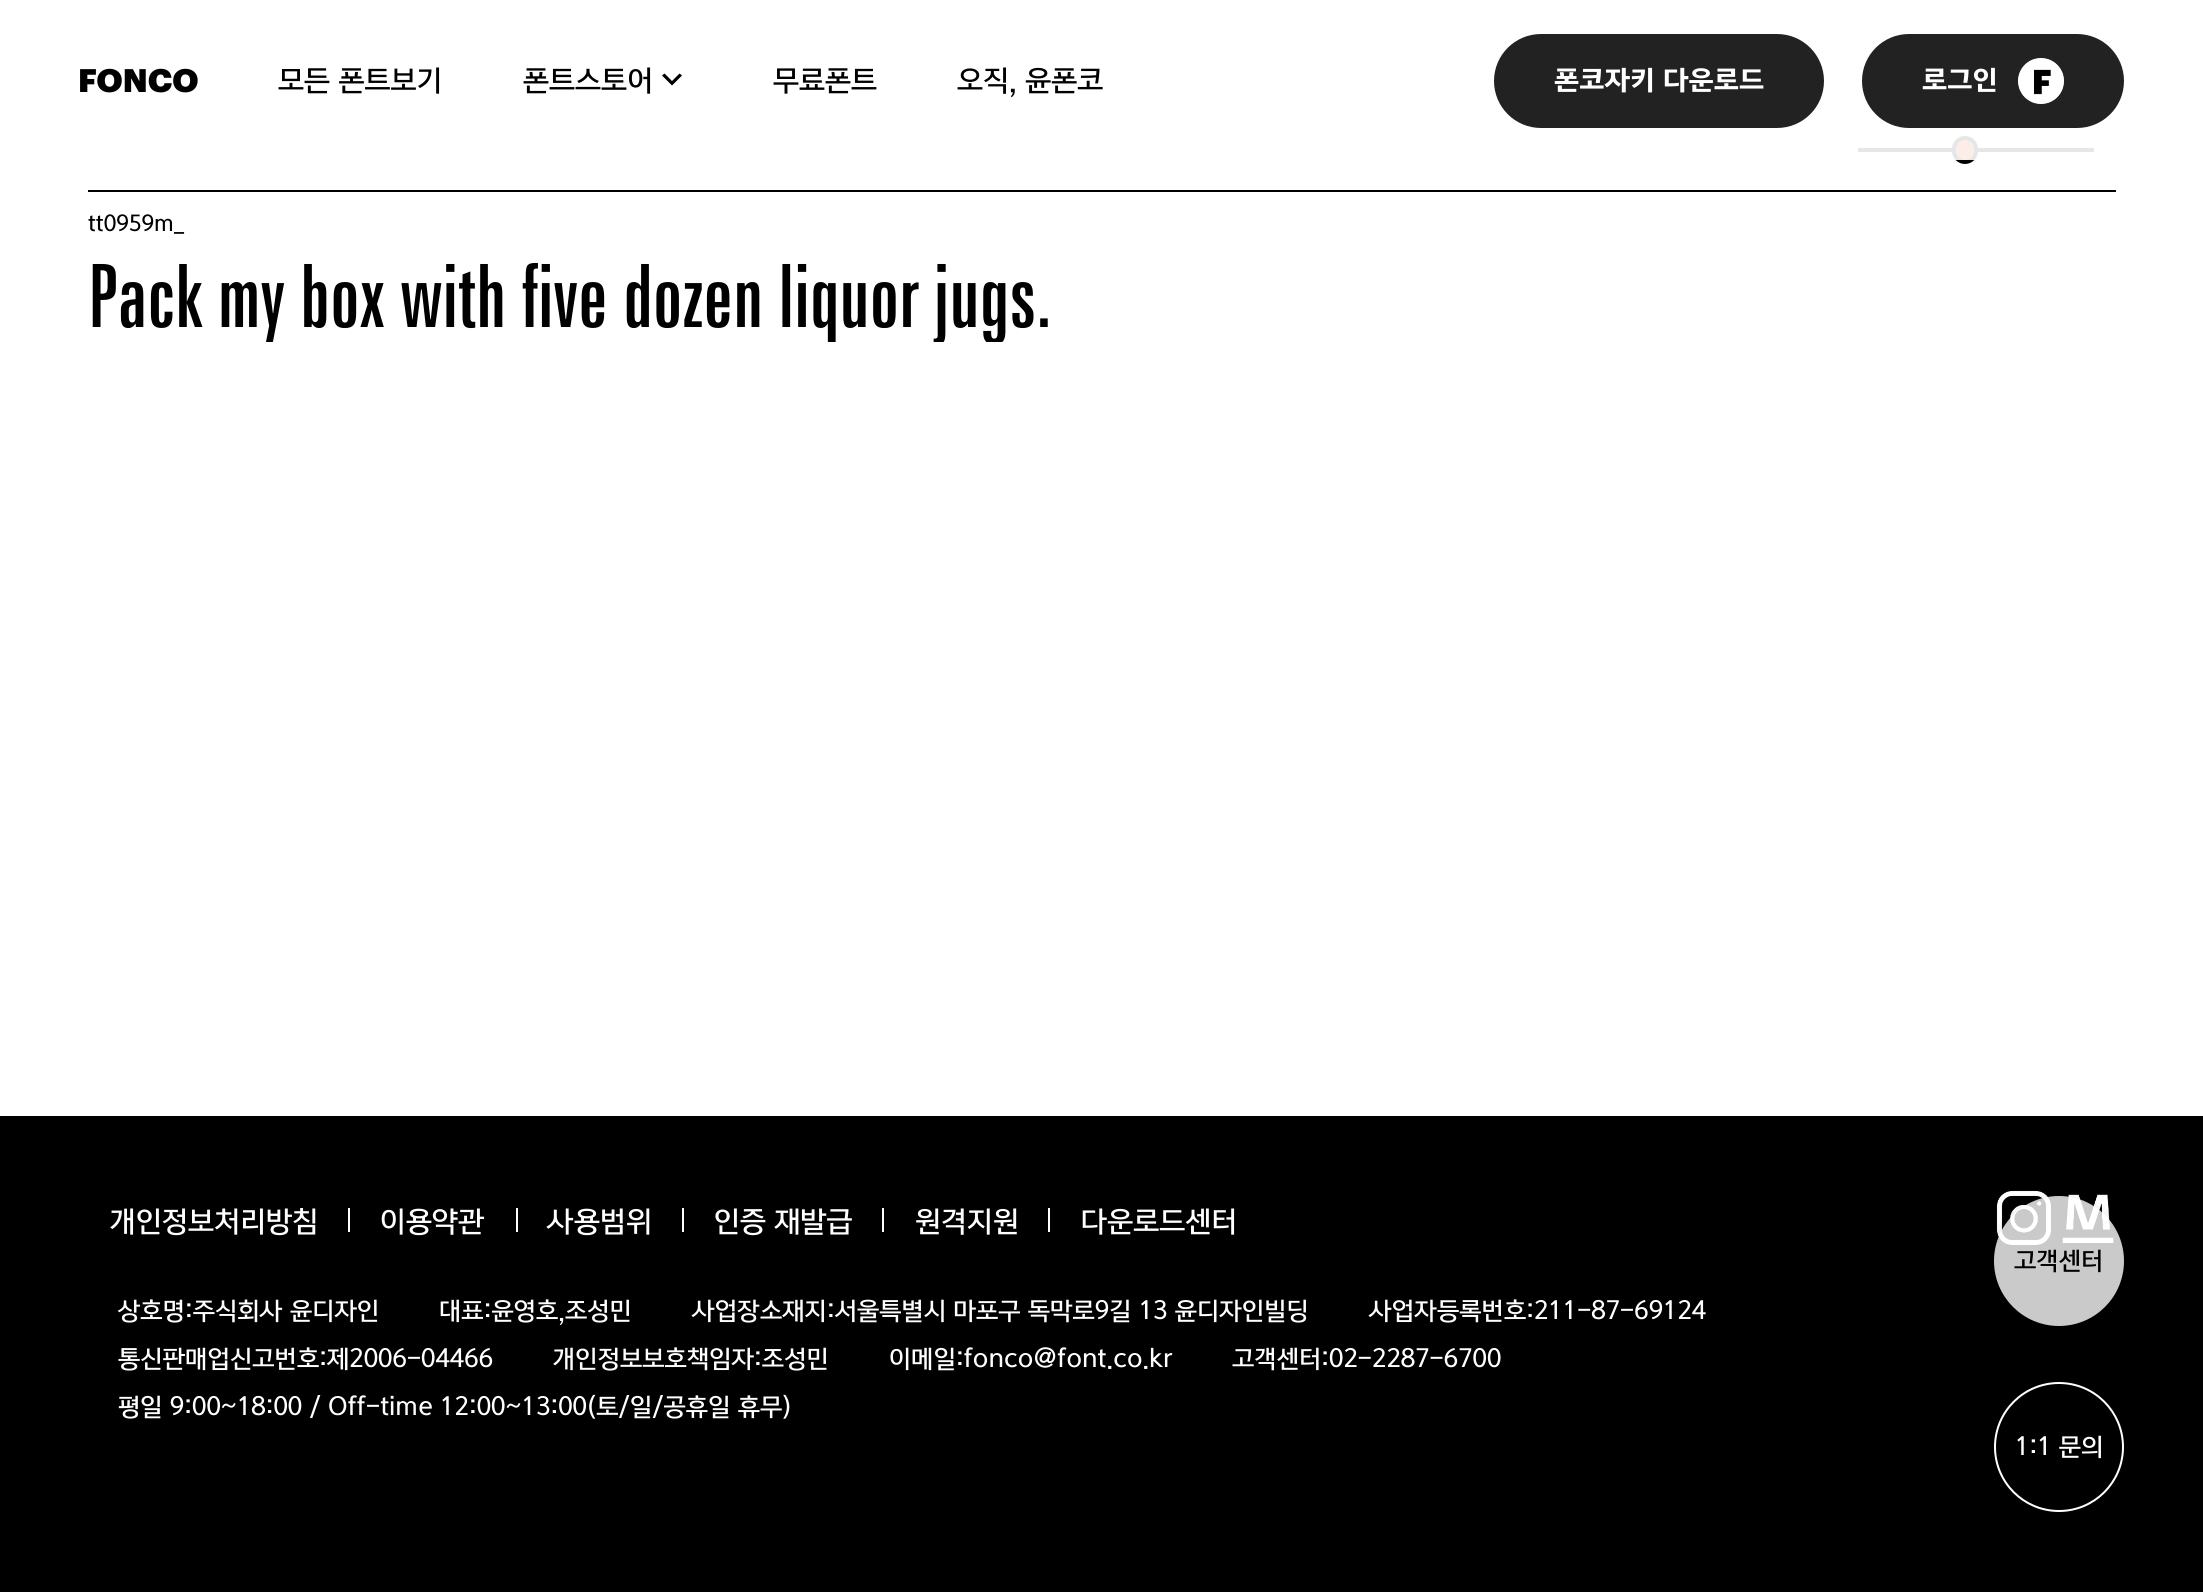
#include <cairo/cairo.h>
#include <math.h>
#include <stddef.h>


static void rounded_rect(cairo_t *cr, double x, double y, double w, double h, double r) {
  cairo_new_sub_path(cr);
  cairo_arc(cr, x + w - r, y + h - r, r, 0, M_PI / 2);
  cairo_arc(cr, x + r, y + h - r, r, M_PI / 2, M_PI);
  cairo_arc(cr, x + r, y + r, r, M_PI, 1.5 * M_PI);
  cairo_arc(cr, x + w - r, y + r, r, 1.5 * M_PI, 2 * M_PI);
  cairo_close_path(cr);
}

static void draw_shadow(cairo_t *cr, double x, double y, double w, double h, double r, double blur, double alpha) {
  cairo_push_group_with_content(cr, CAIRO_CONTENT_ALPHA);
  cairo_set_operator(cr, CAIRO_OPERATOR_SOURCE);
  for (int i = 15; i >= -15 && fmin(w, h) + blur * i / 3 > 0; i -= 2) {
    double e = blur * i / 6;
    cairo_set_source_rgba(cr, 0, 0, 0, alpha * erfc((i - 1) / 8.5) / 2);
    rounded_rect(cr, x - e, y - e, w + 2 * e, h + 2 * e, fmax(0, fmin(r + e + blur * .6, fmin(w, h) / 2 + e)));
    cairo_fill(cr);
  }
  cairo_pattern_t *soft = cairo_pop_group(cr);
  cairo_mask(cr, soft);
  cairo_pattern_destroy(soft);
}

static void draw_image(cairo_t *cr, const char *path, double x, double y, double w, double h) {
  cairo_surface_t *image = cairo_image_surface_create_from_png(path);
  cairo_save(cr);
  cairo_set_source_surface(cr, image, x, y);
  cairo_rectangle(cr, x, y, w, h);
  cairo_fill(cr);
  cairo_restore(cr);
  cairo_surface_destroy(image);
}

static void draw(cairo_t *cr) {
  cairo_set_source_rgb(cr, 1, 1, 1);
  cairo_paint(cr);
  cairo_set_source_rgb(cr, 0, 0, 0);
  cairo_rectangle(cr, 1858, 148, 236, 4);
  cairo_fill(cr);
  cairo_set_source_rgb(cr, 238 / 255.0, 73 / 255.0, 22 / 255.0);
  rounded_rect(cr, 1954, 138, 22, 24, 11);
  cairo_fill_preserve(cr);
  cairo_set_source_rgb(cr, 0, 0, 0);
  cairo_set_line_width(cr, 4);
  cairo_stroke(cr);
  cairo_set_source_rgba(cr, 1, 1, 1, 0.9);
  cairo_rectangle(cr, 1858, 136, 236, 24);
  cairo_fill(cr);
  draw_image(cr, "images/1.png", 80, 68, 118, 25);
  cairo_set_source_rgb(cr, 0, 0, 0);
  cairo_new_path(cr);
  cairo_move_to(cr, 672, 85.5);
  cairo_line_to(cr, 662, 75.5);
  cairo_line_to(cr, 664.5, 73.5);
  cairo_line_to(cr, 672, 81);
  cairo_line_to(cr, 679.5, 73.5);
  cairo_line_to(cr, 682, 75.5);
  cairo_close_path(cr);
  cairo_fill(cr);
  cairo_set_source_rgb(cr, 34 / 255.0, 34 / 255.0, 34 / 255.0);
  rounded_rect(cr, 1494, 34, 330, 94, 47);
  cairo_fill(cr);
  rounded_rect(cr, 1862, 34, 262, 94, 47);
  cairo_fill(cr);
  cairo_set_source_rgb(cr, 217 / 255.0, 217 / 255.0, 217 / 255.0);
  cairo_arc(cr, 2041, 81, 23, 0, 2 * M_PI);
  cairo_fill(cr);
  draw_image(cr, "images/2.png", 2018, 58, 46, 46);
  cairo_set_source_rgb(cr, 0, 0, 0);
  cairo_rectangle(cr, 88, 190, 2028, 2);
  cairo_fill(cr);
  cairo_rectangle(cr, 0, 1116, 2203, 476);
  cairo_fill(cr);
  draw_image(cr, "images/3.png", 1996, 1190, 56, 56);
  draw_image(cr, "images/4.png", 2062, 1194, 52, 50);
  cairo_save(cr);
  cairo_set_fill_rule(cr, CAIRO_FILL_RULE_EVEN_ODD);
  cairo_new_path(cr);
  cairo_move_to(cr, 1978, 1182);
  cairo_line_to(cr, 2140, 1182);
  cairo_line_to(cr, 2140, 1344);
  cairo_line_to(cr, 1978, 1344);
  cairo_close_path(cr);
  cairo_move_to(cr, 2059, 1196);
  cairo_curve_to(cr, 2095, 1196, 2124, 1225, 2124, 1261);
  cairo_curve_to(cr, 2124, 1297, 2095, 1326, 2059, 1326);
  cairo_curve_to(cr, 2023, 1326, 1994, 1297, 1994, 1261);
  cairo_curve_to(cr, 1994, 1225, 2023, 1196, 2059, 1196);
  cairo_close_path(cr);
  cairo_clip(cr);
  cairo_set_source_rgb(cr, 0, 0, 0);
  draw_shadow(cr, 1994, 1198, 130, 130, 65, 5, 0.15);
  cairo_restore(cr);
  cairo_set_source_rgba(cr, 1, 1, 1, 0.79);
  cairo_arc(cr, 2059, 1261, 65, 0, 2 * M_PI);
  cairo_fill(cr);
  cairo_arc(cr, 2059, 1447, 64, 0, 2 * M_PI);
  cairo_set_source_rgb(cr, 1, 1, 1);
  cairo_set_line_width(cr, 2);
  cairo_stroke(cr);
  cairo_rectangle(cr, 348, 1208, 2, 24);
  cairo_fill(cr);
  cairo_rectangle(cr, 516, 1208, 2, 24);
  cairo_fill(cr);
  cairo_rectangle(cr, 682, 1208, 2, 24);
  cairo_fill(cr);
  cairo_rectangle(cr, 882, 1208, 2, 24);
  cairo_fill(cr);
  cairo_rectangle(cr, 1048, 1208, 2, 24);
  cairo_fill(cr);
  cairo_select_font_face(cr, "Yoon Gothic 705 Medium", CAIRO_FONT_SLANT_NORMAL, CAIRO_FONT_WEIGHT_NORMAL);
  cairo_set_font_size(cr, 28);
  cairo_set_source_rgb(cr, 0, 0, 0);
  cairo_move_to(cr, 278, 90);
  cairo_show_text(cr, "모든 폰트보기");
  cairo_move_to(cr, 523, 90);
  cairo_show_text(cr, "폰트스토어");
  cairo_move_to(cr, 773, 90);
  cairo_show_text(cr, "무료폰트");
  cairo_move_to(cr, 957, 90);
  cairo_show_text(cr, "오직, 윤폰코");
  cairo_select_font_face(cr, "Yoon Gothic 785", CAIRO_FONT_SLANT_NORMAL, CAIRO_FONT_WEIGHT_BOLD);
  cairo_set_font_size(cr, 26);
  cairo_set_source_rgb(cr, 1, 1, 1);
  cairo_move_to(cr, 1554, 89);
  cairo_show_text(cr, "폰코자키 다운로드");
  cairo_move_to(cr, 1922, 89);
  cairo_show_text(cr, "로그인");
  cairo_select_font_face(cr, "Yoon Gothic 705 Medium", CAIRO_FONT_SLANT_NORMAL, CAIRO_FONT_WEIGHT_NORMAL);
  cairo_set_font_size(cr, 21);
  cairo_set_source_rgb(cr, 0, 0, 0);
  cairo_move_to(cr, 88, 231);
  cairo_show_text(cr, "tt0959m_");
  cairo_save(cr);
  cairo_rectangle(cr, 88, 106, 2028, 236);
  cairo_clip(cr);
  cairo_select_font_face(cr, "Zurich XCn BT", CAIRO_FONT_SLANT_NORMAL, CAIRO_FONT_WEIGHT_NORMAL);
  cairo_set_font_size(cr, 87.5);
  cairo_move_to(cr, 88, 327);
  cairo_show_text(cr, "Pack my box with five dozen liquor jugs.");
  cairo_restore(cr);
  cairo_set_font_size(cr, 24);
  cairo_move_to(cr, 2014, 1269);
  cairo_show_text(cr, "고객센터");
  cairo_set_source_rgb(cr, 1, 1, 1);
  cairo_move_to(cr, 2015, 1455);
  cairo_show_text(cr, "1:1 문의");
  cairo_set_font_size(cr, 28);
  cairo_move_to(cr, 110, 1231);
  cairo_show_text(cr, "개인정보처리방침");
  cairo_move_to(cr, 380, 1231);
  cairo_show_text(cr, "이용약관");
  cairo_move_to(cr, 547, 1231);
  cairo_show_text(cr, "사용범위");
  cairo_move_to(cr, 714, 1231);
  cairo_show_text(cr, "인증 재발급");
  cairo_move_to(cr, 915, 1231);
  cairo_show_text(cr, "원격지원");
  cairo_move_to(cr, 1081, 1231);
  cairo_show_text(cr, "다운로드센터");
  cairo_set_font_size(cr, 24);
  cairo_move_to(cr, 118, 1319);
  cairo_show_text(cr, "상호명:주식회사 윤디자인");
  cairo_move_to(cr, 439, 1319);
  cairo_show_text(cr, "대표:윤영호,조성민");
  cairo_move_to(cr, 692, 1319);
  cairo_show_text(cr, "사업장소재지:서울특별시 마포구 독막로9길 13 윤디자인빌딩");
  cairo_move_to(cr, 1369, 1319);
  cairo_show_text(cr, "사업자등록번호:211-87-69124");
  cairo_move_to(cr, 118, 1367);
  cairo_show_text(cr, "통신판매업신고번호:제2006-04466");
  cairo_move_to(cr, 553, 1367);
  cairo_show_text(cr, "개인정보보호책임자:조성민");
  cairo_move_to(cr, 889, 1367);
  cairo_show_text(cr, "이메일:fonco@font.co.kr");
  cairo_move_to(cr, 1232, 1367);
  cairo_show_text(cr, "고객센터:02-2287-6700");
  cairo_move_to(cr, 118, 1415);
  cairo_show_text(cr, "평일 9:00~18:00 / Off-time 12:00~13:00(토/일/공휴일 휴무)");
}

int main(void) {
  cairo_surface_t *surface = cairo_image_surface_create(CAIRO_FORMAT_RGB24, 2203, 1592);
  cairo_t *cr = cairo_create(surface);
  cairo_font_options_t *options = cairo_font_options_create();
  cairo_font_options_set_hint_metrics(options, CAIRO_HINT_METRICS_OFF);
  cairo_font_options_set_hint_style(options, CAIRO_HINT_STYLE_NONE);
  cairo_set_font_options(cr, options);
  cairo_set_miter_limit(cr, 4);
  draw(cr);
  cairo_surface_write_to_png(surface, "out.png");
  cairo_font_options_destroy(options);
  cairo_destroy(cr);
  cairo_surface_destroy(surface);
  return 0;
}
